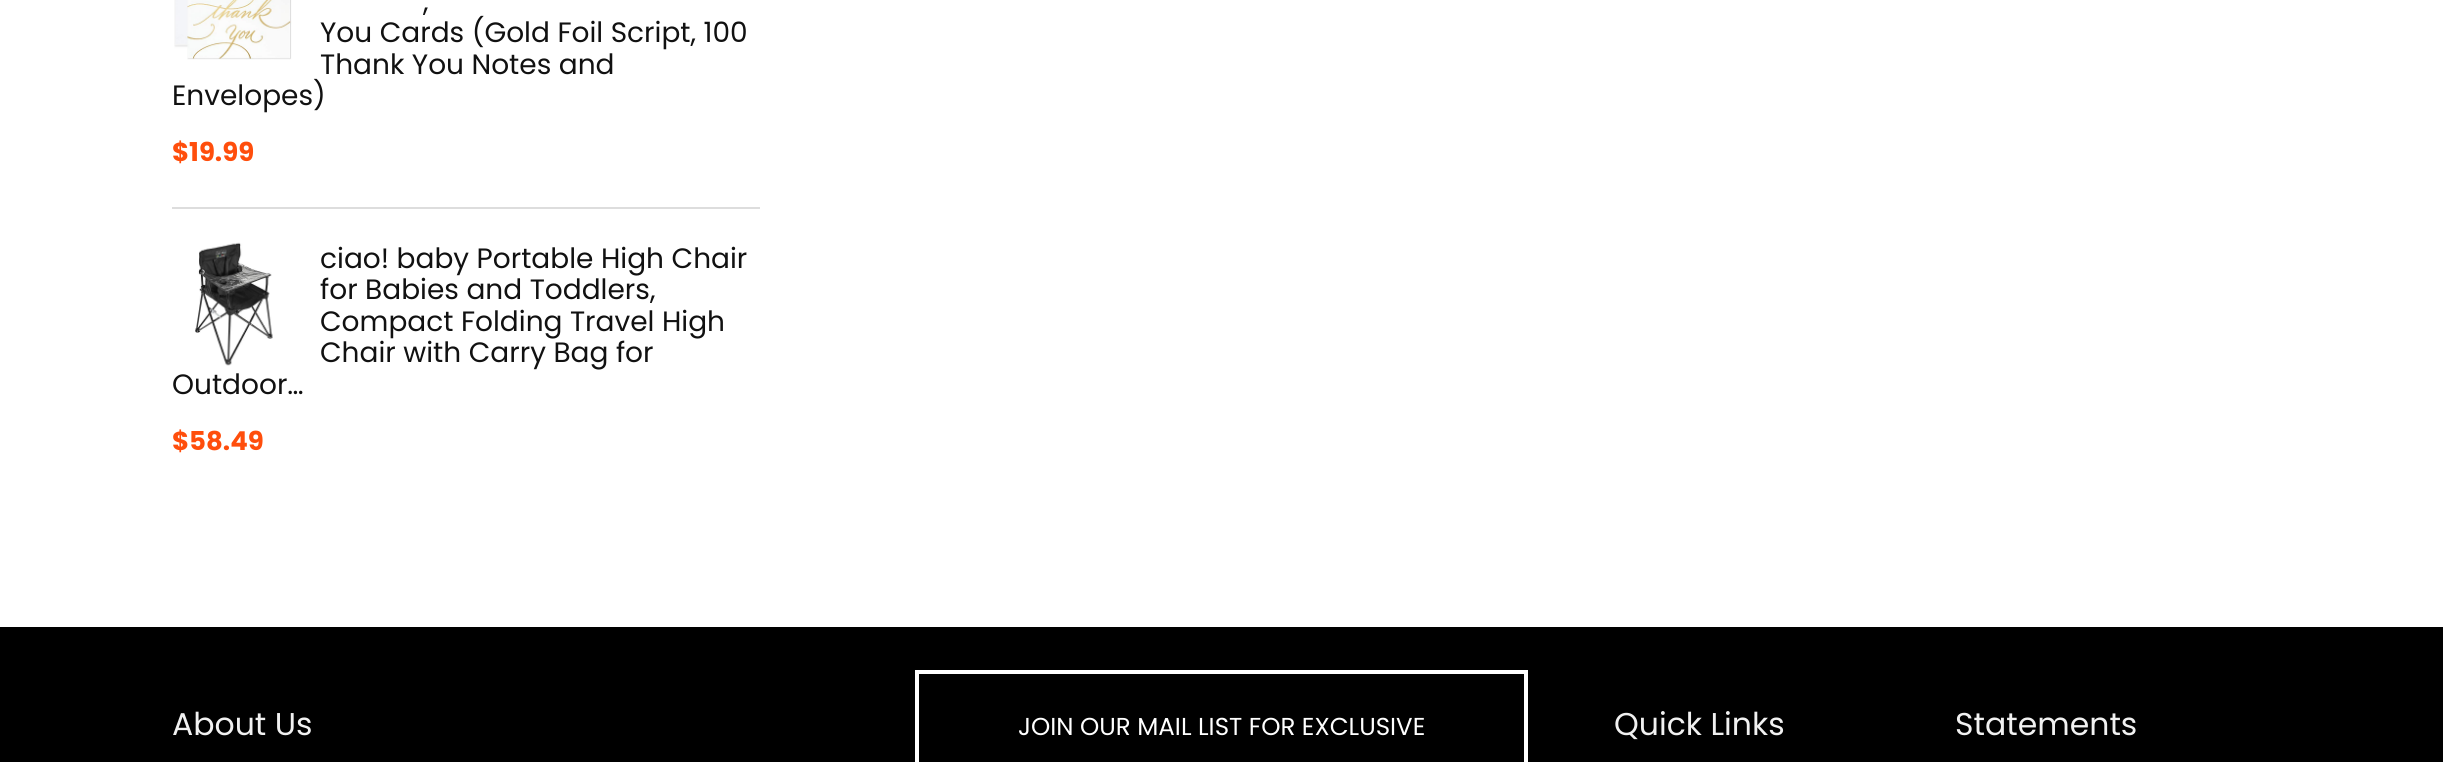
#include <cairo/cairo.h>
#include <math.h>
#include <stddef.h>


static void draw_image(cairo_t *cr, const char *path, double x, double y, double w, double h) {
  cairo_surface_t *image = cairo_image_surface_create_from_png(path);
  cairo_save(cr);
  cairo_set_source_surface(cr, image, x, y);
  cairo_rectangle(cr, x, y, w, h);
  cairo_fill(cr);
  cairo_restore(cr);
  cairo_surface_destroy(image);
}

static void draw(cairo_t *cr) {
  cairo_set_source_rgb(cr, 1, 1, 1);
  cairo_paint(cr);
  cairo_set_source_rgb(cr, 221 / 255.0, 221 / 255.0, 221 / 255.0);
  cairo_rectangle(cr, 172, 207, 588, 2);
  cairo_fill(cr);
  draw_image(cr, "images/1.png", 174, 0, 118, 60);
  draw_image(cr, "images/2.png", 195, 242, 78, 124);
  cairo_set_source_rgb(cr, 0, 0, 0);
  cairo_rectangle(cr, 0, 627, 2443, 135);
  cairo_fill(cr);
  cairo_rectangle(cr, 917, 672, 609, 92);
  cairo_set_source_rgb(cr, 1, 1, 1);
  cairo_set_line_width(cr, 4);
  cairo_stroke(cr);
  cairo_select_font_face(cr, "Poppins", CAIRO_FONT_SLANT_NORMAL, CAIRO_FONT_WEIGHT_NORMAL);
  cairo_set_font_size(cr, 28);
  cairo_set_source_rgb(cr, 17 / 255.0, 17 / 255.0, 17 / 255.0);
  cairo_move_to(cr, 423, 11);
  cairo_show_text(cr, ",");
  cairo_move_to(cr, 320, 42);
  cairo_show_text(cr, "You Cards (Gold Foil Script, 100");
  cairo_move_to(cr, 320, 74);
  cairo_show_text(cr, "Thank You Notes and");
  cairo_move_to(cr, 172, 105);
  cairo_show_text(cr, "Envelopes)");
  cairo_select_font_face(cr, "Poppins", CAIRO_FONT_SLANT_NORMAL, CAIRO_FONT_WEIGHT_BOLD);
  cairo_set_font_size(cr, 26);
  cairo_set_source_rgb(cr, 1, 78 / 255.0, 12 / 255.0);
  cairo_move_to(cr, 172, 161);
  cairo_show_text(cr, "$19.99");
  cairo_select_font_face(cr, "Poppins", CAIRO_FONT_SLANT_NORMAL, CAIRO_FONT_WEIGHT_NORMAL);
  cairo_set_font_size(cr, 28);
  cairo_set_source_rgb(cr, 17 / 255.0, 17 / 255.0, 17 / 255.0);
  cairo_move_to(cr, 320, 268);
  cairo_show_text(cr, "ciao! baby Portable High Chair");
  cairo_move_to(cr, 320, 299);
  cairo_show_text(cr, "for Babies and Toddlers,");
  cairo_move_to(cr, 320, 331);
  cairo_show_text(cr, "Compact Folding Travel High");
  cairo_move_to(cr, 320, 362);
  cairo_show_text(cr, "Chair with Carry Bag for");
  cairo_move_to(cr, 172, 394);
  cairo_show_text(cr, "Outdoor…");
  cairo_select_font_face(cr, "Poppins", CAIRO_FONT_SLANT_NORMAL, CAIRO_FONT_WEIGHT_BOLD);
  cairo_set_font_size(cr, 26);
  cairo_set_source_rgb(cr, 1, 78 / 255.0, 12 / 255.0);
  cairo_move_to(cr, 172, 450);
  cairo_show_text(cr, "$58.49");
  cairo_select_font_face(cr, "Poppins", CAIRO_FONT_SLANT_NORMAL, CAIRO_FONT_WEIGHT_NORMAL);
  cairo_set_font_size(cr, 31.5);
  cairo_set_source_rgb(cr, 241 / 255.0, 241 / 255.0, 241 / 255.0);
  cairo_move_to(cr, 172, 735);
  cairo_show_text(cr, "About Us");
  cairo_set_font_size(cr, 24.5);
  cairo_set_source_rgb(cr, 1, 1, 1);
  cairo_move_to(cr, 1018, 735);
  cairo_show_text(cr, "JOIN OUR MAIL LIST FOR EXCLUSIVE");
  cairo_set_font_size(cr, 31.5);
  cairo_set_source_rgb(cr, 241 / 255.0, 241 / 255.0, 241 / 255.0);
  cairo_move_to(cr, 1614, 735);
  cairo_show_text(cr, "Quick Links");
  cairo_move_to(cr, 1955, 735);
  cairo_show_text(cr, "Statements");
}

int main(void) {
  cairo_surface_t *surface = cairo_image_surface_create(CAIRO_FORMAT_RGB24, 2443, 762);
  cairo_t *cr = cairo_create(surface);
  cairo_font_options_t *options = cairo_font_options_create();
  cairo_font_options_set_hint_metrics(options, CAIRO_HINT_METRICS_OFF);
  cairo_font_options_set_hint_style(options, CAIRO_HINT_STYLE_NONE);
  cairo_set_font_options(cr, options);
  cairo_set_miter_limit(cr, 4);
  draw(cr);
  cairo_surface_write_to_png(surface, "out.png");
  cairo_font_options_destroy(options);
  cairo_destroy(cr);
  cairo_surface_destroy(surface);
  return 0;
}
